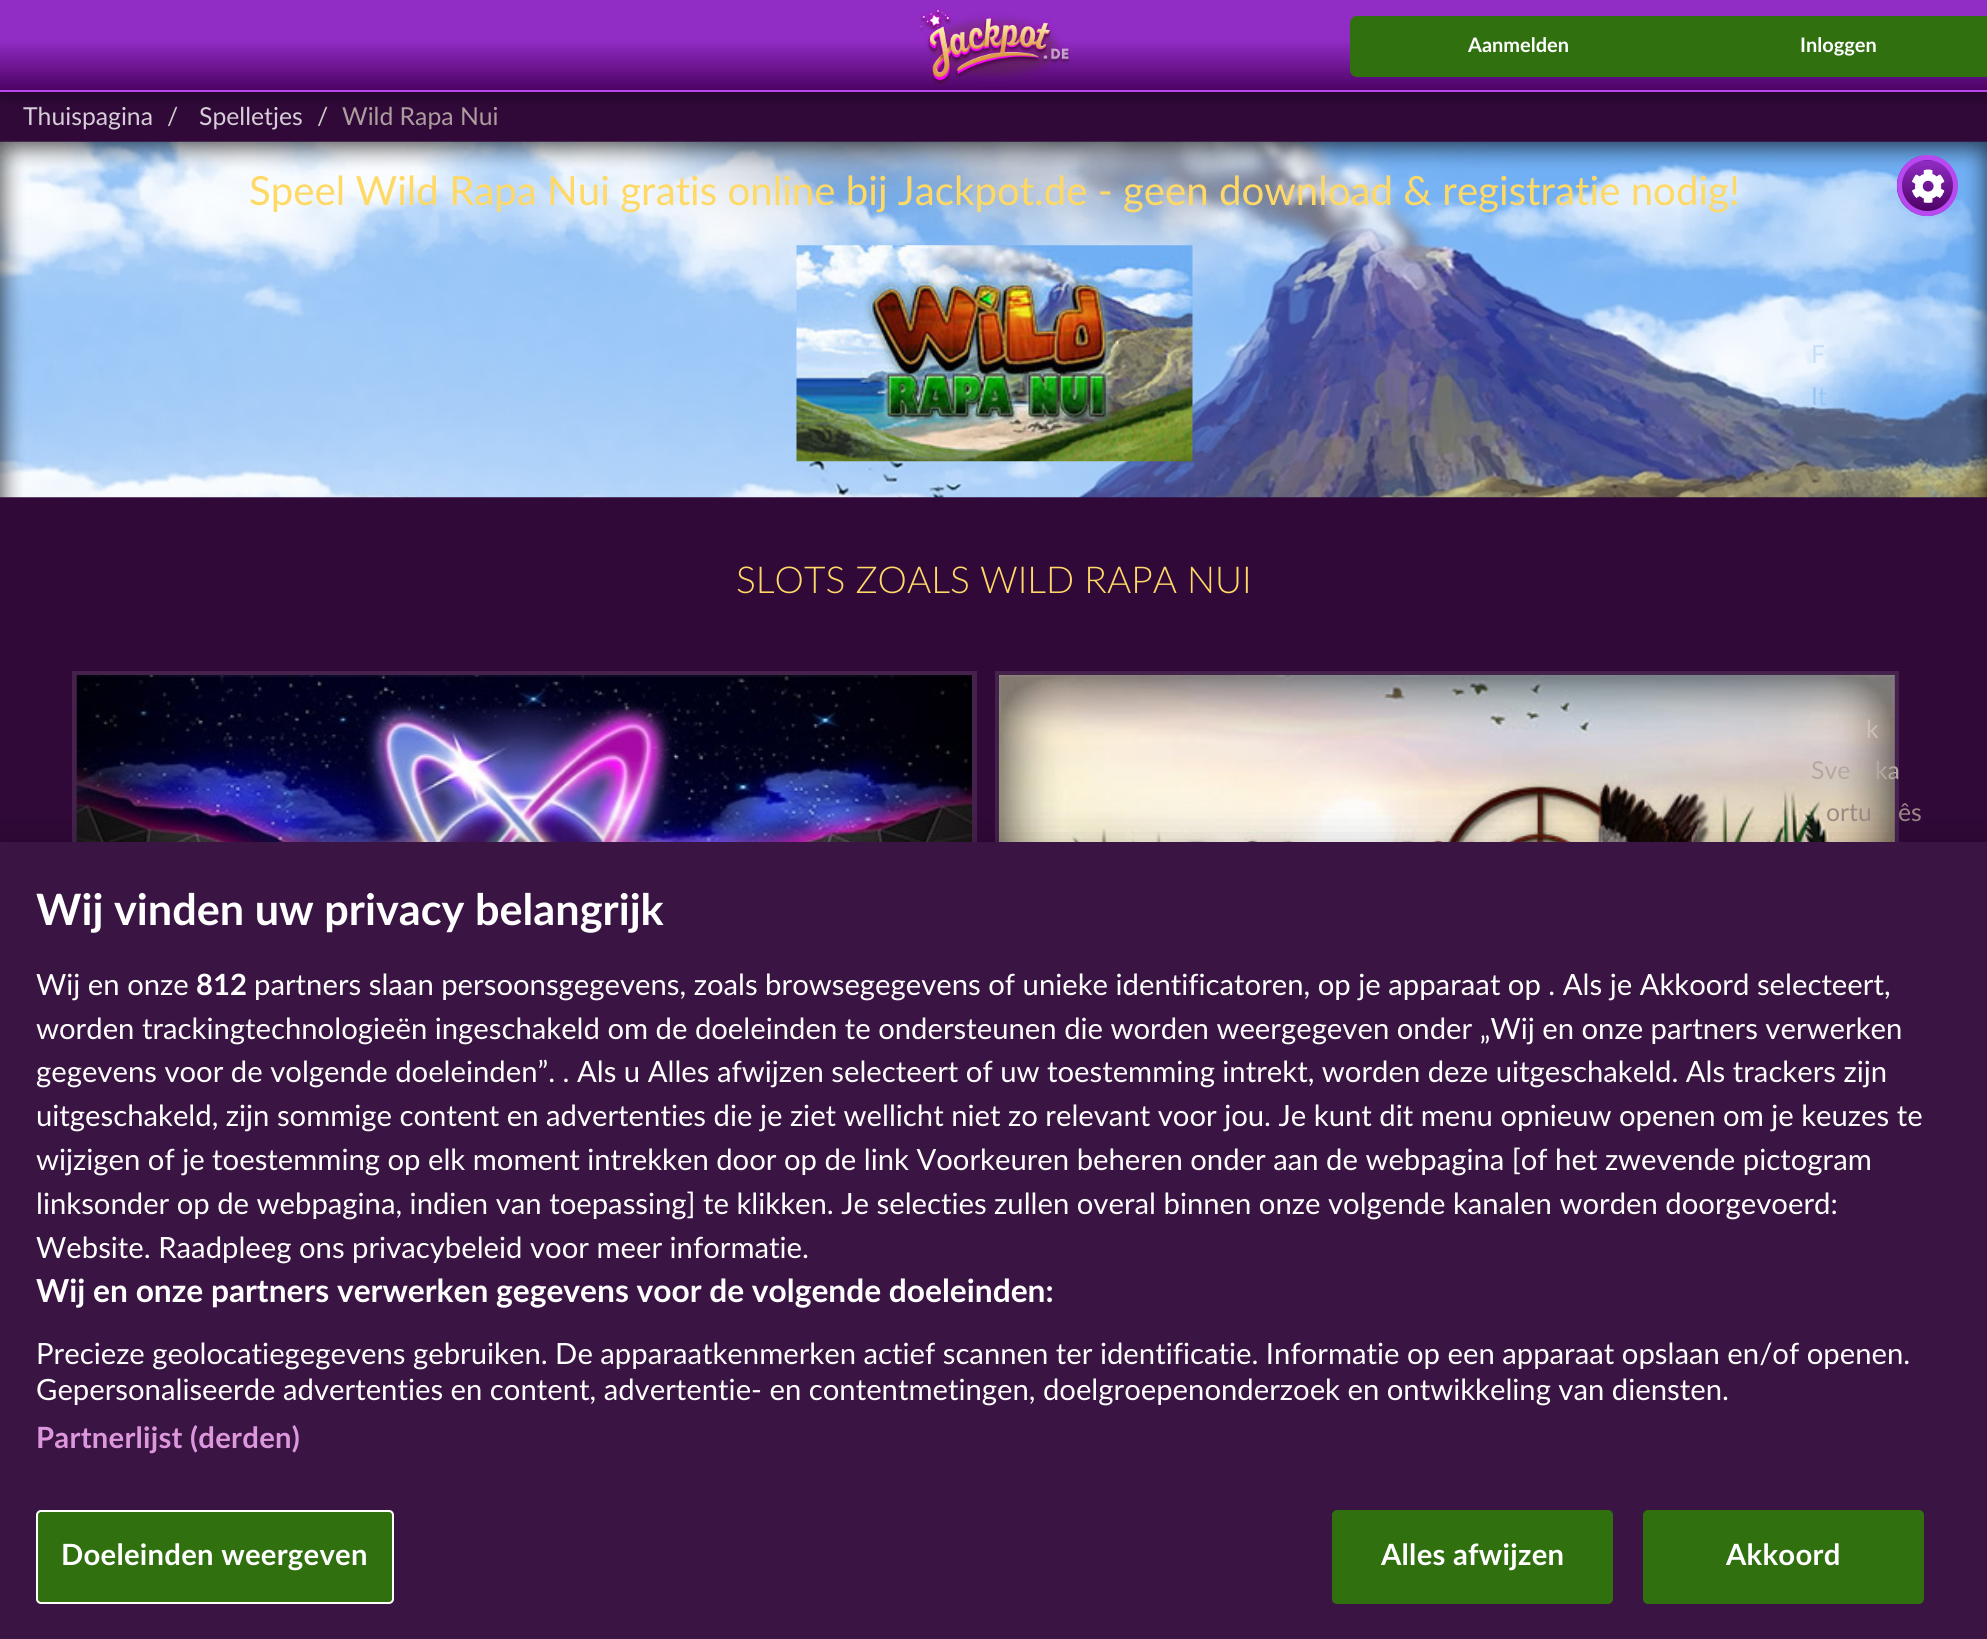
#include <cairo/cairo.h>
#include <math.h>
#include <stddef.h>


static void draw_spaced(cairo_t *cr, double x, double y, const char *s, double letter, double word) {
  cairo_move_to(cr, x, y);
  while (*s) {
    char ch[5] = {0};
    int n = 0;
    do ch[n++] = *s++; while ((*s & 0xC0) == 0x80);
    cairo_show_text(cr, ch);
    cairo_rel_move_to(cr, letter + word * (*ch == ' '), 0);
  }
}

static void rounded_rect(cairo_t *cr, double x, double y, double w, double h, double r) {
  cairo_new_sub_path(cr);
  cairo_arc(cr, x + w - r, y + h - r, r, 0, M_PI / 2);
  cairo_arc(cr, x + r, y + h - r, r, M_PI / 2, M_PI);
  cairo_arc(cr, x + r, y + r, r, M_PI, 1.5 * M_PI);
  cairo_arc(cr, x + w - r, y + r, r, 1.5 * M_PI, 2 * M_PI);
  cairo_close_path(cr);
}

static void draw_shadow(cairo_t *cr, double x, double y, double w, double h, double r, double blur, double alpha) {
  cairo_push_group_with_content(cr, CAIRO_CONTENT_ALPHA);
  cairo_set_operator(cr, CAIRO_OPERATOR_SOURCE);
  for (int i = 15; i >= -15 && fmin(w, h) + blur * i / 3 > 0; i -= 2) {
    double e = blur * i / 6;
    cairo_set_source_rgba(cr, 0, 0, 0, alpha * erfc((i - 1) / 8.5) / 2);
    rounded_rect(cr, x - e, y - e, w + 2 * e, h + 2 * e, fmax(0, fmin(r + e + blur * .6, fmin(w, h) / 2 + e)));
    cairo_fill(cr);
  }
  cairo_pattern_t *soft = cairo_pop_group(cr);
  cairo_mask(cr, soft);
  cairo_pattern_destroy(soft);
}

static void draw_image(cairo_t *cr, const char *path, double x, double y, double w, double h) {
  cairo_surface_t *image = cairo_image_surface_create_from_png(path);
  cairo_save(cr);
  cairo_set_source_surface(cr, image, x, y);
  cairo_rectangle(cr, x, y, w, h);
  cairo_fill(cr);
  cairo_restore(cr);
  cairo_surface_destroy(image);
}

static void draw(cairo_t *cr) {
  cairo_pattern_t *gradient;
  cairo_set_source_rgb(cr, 48 / 255.0, 9 / 255.0, 57 / 255.0);
  cairo_paint(cr);
  cairo_set_source_rgb(cr, 0, 0, 0);
  draw_shadow(cr, 0, 5, 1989, 92, 0, 7, 0.3);
  gradient = cairo_pattern_create_linear(995, 0, 995, 90);
  cairo_pattern_add_color_stop_rgba(gradient, 0.45, 145 / 255.0, 44 / 255.0, 197 / 255.0, 1);
  cairo_pattern_add_color_stop_rgba(gradient, 1, 77 / 255.0, 2 / 255.0, 100 / 255.0, 1);
  cairo_set_source(cr, gradient);
  cairo_pattern_destroy(gradient);
  cairo_rectangle(cr, 0, 0, 1987, 90);
  cairo_fill(cr);
  cairo_set_source_rgb(cr, 184 / 255.0, 73 / 255.0, 241 / 255.0);
  cairo_rectangle(cr, 0, 90, 1987, 2);
  cairo_fill(cr);
  draw_image(cr, "images/1.png", 919, 8, 152, 78);
  cairo_set_source_rgb(cr, 48 / 255.0, 112 / 255.0, 15 / 255.0);
  rounded_rect(cr, 1350, 16, 338, 61, 7);
  cairo_fill(cr);
  rounded_rect(cr, 1670, 16, 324, 61, 7);
  cairo_fill(cr);
  draw_image(cr, "images/2.png", 0, 141, 1987, 357);
  draw_image(cr, "images/3.png", 796, 245, 397, 217);
  cairo_set_source_rgb(cr, 69 / 255.0, 34 / 255.0, 76 / 255.0);
  cairo_rectangle(cr, 72, 671, 905, 171);
  cairo_fill(cr);
  draw_image(cr, "images/4.png", 76, 675, 896, 167);
  cairo_rectangle(cr, 995, 671, 904, 171);
  cairo_fill(cr);
  cairo_set_source_rgb(cr, 115 / 255.0, 89 / 255.0, 121 / 255.0);
  cairo_rectangle(cr, 1894, 675, 1, 167);
  cairo_fill(cr);
  draw_image(cr, "images/5.png", 999, 675, 896, 167);
  draw_image(cr, "images/6.png", 1896, 155, 62, 61);
  cairo_arc(cr, 1927.5, 185.5, 28, 0, 2 * M_PI);
  cairo_set_source_rgb(cr, 184 / 255.0, 73 / 255.0, 241 / 255.0);
  cairo_set_line_width(cr, 5);
  cairo_stroke(cr);
  cairo_set_source_rgb(cr, 0, 0, 0);
  draw_shadow(cr, 0, 842, 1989, 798, 0, 20, 0.2);
  cairo_set_source_rgb(cr, 58 / 255.0, 20 / 255.0, 67 / 255.0);
  cairo_rectangle(cr, 0, 842, 1987, 797);
  cairo_fill(cr);
  cairo_set_source_rgb(cr, 48 / 255.0, 112 / 255.0, 15 / 255.0);
  rounded_rect(cr, 37, 1511, 356, 92, 4);
  cairo_fill_preserve(cr);
  cairo_set_source_rgb(cr, 1, 1, 1);
  cairo_set_line_width(cr, 2);
  cairo_stroke(cr);
  cairo_set_source_rgb(cr, 48 / 255.0, 112 / 255.0, 15 / 255.0);
  rounded_rect(cr, 1333, 1511, 279, 92, 4);
  cairo_fill_preserve(cr);
  cairo_stroke(cr);
  rounded_rect(cr, 1644, 1511, 279, 92, 4);
  cairo_fill_preserve(cr);
  cairo_stroke(cr);
  cairo_select_font_face(cr, "Lato", CAIRO_FONT_SLANT_NORMAL, CAIRO_FONT_WEIGHT_BOLD);
  cairo_set_font_size(cr, 20);
  cairo_set_source_rgb(cr, 1, 1, 1);
  cairo_move_to(cr, 1468, 52);
  cairo_show_text(cr, "Aanmelden");
  cairo_move_to(cr, 1800, 52);
  cairo_show_text(cr, "Inloggen");
  cairo_select_font_face(cr, "Lato", CAIRO_FONT_SLANT_NORMAL, CAIRO_FONT_WEIGHT_NORMAL);
  cairo_set_font_size(cr, 24.75);
  cairo_set_source_rgb(cr, 214 / 255.0, 206 / 255.0, 215 / 255.0);
  cairo_move_to(cr, 23, 125);
  cairo_show_text(cr, "Thuispagina");
  cairo_set_source_rgb(cr, 204 / 255.0, 204 / 255.0, 204 / 255.0);
  cairo_move_to(cr, 167, 125);
  cairo_show_text(cr, "/");
  cairo_set_source_rgb(cr, 214 / 255.0, 206 / 255.0, 215 / 255.0);
  cairo_move_to(cr, 199, 125);
  cairo_show_text(cr, "Spelletjes");
  cairo_set_source_rgb(cr, 204 / 255.0, 204 / 255.0, 204 / 255.0);
  cairo_move_to(cr, 317, 125);
  cairo_show_text(cr, "/");
  cairo_set_source_rgb(cr, 172 / 255.0, 157 / 255.0, 157 / 255.0);
  cairo_move_to(cr, 342, 125);
  cairo_show_text(cr, "Wild Rapa Nui");
  cairo_set_font_size(cr, 40.2);
  cairo_set_source_rgb(cr, 1, 217 / 255.0, 102 / 255.0);
  cairo_move_to(cr, 249, 205);
  cairo_show_text(cr, "Speel Wild Rapa Nui gratis online bij Jackpot.de - geen download & registratie nodig!");
  cairo_select_font_face(cr, "Lato Light", CAIRO_FONT_SLANT_NORMAL, CAIRO_FONT_WEIGHT_NORMAL);
  cairo_set_font_size(cr, 37.1);
  cairo_move_to(cr, 736, 593);
  cairo_show_text(cr, "SLOTS ZOALS WILD RAPA NUI");
  cairo_select_font_face(cr, "Lato", CAIRO_FONT_SLANT_NORMAL, CAIRO_FONT_WEIGHT_NORMAL);
  cairo_set_font_size(cr, 24.75);
  cairo_set_source_rgb(cr, 198 / 255.0, 222 / 255.0, 250 / 255.0);
  cairo_move_to(cr, 1811, 363);
  cairo_show_text(cr, "F");
  cairo_set_source_rgb(cr, 152 / 255.0, 197 / 255.0, 247 / 255.0);
  cairo_move_to(cr, 1811, 405);
  cairo_show_text(cr, "It");
  cairo_set_source_rgb(cr, 204 / 255.0, 192 / 255.0, 187 / 255.0);
  cairo_move_to(cr, 1866, 738);
  cairo_show_text(cr, "k");
  cairo_set_source_rgb(cr, 180 / 255.0, 168 / 255.0, 163 / 255.0);
  cairo_move_to(cr, 1811, 779);
  cairo_show_text(cr, "Sve");
  cairo_move_to(cr, 1875, 779);
  cairo_show_text(cr, "ka");
  cairo_set_source_rgb(cr, 155 / 255.0, 136 / 255.0, 132 / 255.0);
  cairo_move_to(cr, 1826, 821);
  cairo_show_text(cr, "ortu");
  cairo_move_to(cr, 1898, 821);
  cairo_show_text(cr, "ês");
  cairo_select_font_face(cr, "Lato", CAIRO_FONT_SLANT_NORMAL, CAIRO_FONT_WEIGHT_BOLD);
  cairo_set_font_size(cr, 43.25);
  cairo_set_source_rgb(cr, 1, 1, 1);
  cairo_move_to(cr, 36, 925);
  cairo_show_text(cr, "Wij vinden uw privacy belangrijk");
  cairo_select_font_face(cr, "Lato", CAIRO_FONT_SLANT_NORMAL, CAIRO_FONT_WEIGHT_NORMAL);
  cairo_set_font_size(cr, 29.27);
  cairo_move_to(cr, 36, 995);
  cairo_show_text(cr, "Wij en onze");
  cairo_select_font_face(cr, "Lato", CAIRO_FONT_SLANT_NORMAL, CAIRO_FONT_WEIGHT_BOLD);
  cairo_move_to(cr, 196, 995);
  cairo_show_text(cr, "812");
  cairo_select_font_face(cr, "Lato", CAIRO_FONT_SLANT_NORMAL, CAIRO_FONT_WEIGHT_NORMAL);
  cairo_move_to(cr, 254, 995);
  cairo_show_text(cr, "partners slaan persoonsgegevens, zoals browsegegevens of unieke identificatoren, op je apparaat op . Als je Akkoord selecteert,");
  cairo_move_to(cr, 36, 1039);
  cairo_show_text(cr, "worden trackingtechnologieën ingeschakeld om de doeleinden te ondersteunen die worden weergegeven onder „Wij en onze partners verwerken");
  cairo_move_to(cr, 36, 1082);
  cairo_show_text(cr, "gegevens voor de volgende doeleinden”. . Als u Alles afwijzen selecteert of uw toestemming intrekt, worden deze uitgeschakeld. Als trackers zijn");
  cairo_move_to(cr, 36, 1126);
  cairo_show_text(cr, "uitgeschakeld, zijn sommige content en advertenties die je ziet wellicht niet zo relevant voor jou. Je kunt dit menu opnieuw openen om je keuzes te");
  cairo_move_to(cr, 36, 1170);
  cairo_show_text(cr, "wijzigen of je toestemming op elk moment intrekken door op de link Voorkeuren beheren onder aan de webpagina [of het zwevende pictogram");
  cairo_move_to(cr, 36, 1214);
  cairo_show_text(cr, "linksonder op de webpagina, indien van toepassing] te klikken. Je selecties zullen overal binnen onze volgende kanalen worden doorgevoerd:");
  cairo_move_to(cr, 36, 1258);
  cairo_show_text(cr, "Website. Raadpleeg ons privacybeleid voor meer informatie.");
  cairo_select_font_face(cr, "Lato", CAIRO_FONT_SLANT_NORMAL, CAIRO_FONT_WEIGHT_BOLD);
  cairo_set_font_size(cr, 31.7);
  cairo_move_to(cr, 36, 1302);
  cairo_show_text(cr, "Wij en onze partners verwerken gegevens voor de volgende doeleinden:");
  cairo_select_font_face(cr, "Lato", CAIRO_FONT_SLANT_NORMAL, CAIRO_FONT_WEIGHT_NORMAL);
  cairo_set_font_size(cr, 29.27);
  cairo_move_to(cr, 36, 1364);
  cairo_show_text(cr, "Precieze geolocatiegegevens gebruiken. De apparaatkenmerken actief scannen ter identificatie. Informatie op een apparaat opslaan en/of openen.");
  cairo_move_to(cr, 36, 1400);
  cairo_show_text(cr, "Gepersonaliseerde advertenties en content, advertentie- en contentmetingen, doelgroepenonderzoek en ontwikkeling van diensten.");
  cairo_select_font_face(cr, "Lato", CAIRO_FONT_SLANT_NORMAL, CAIRO_FONT_WEIGHT_BOLD);
  cairo_set_source_rgb(cr, 221 / 255.0, 151 / 255.0, 221 / 255.0);
  draw_spaced(cr, 36, 1448, "Partnerlijst (derden)", 0.25, 0);
  cairo_set_source_rgb(cr, 1, 1, 1);
  draw_spaced(cr, 61, 1565, "Doeleinden weergeven", 0.25, 0);
  draw_spaced(cr, 1381, 1565, "Alles afwijzen", 0.25, 0);
  draw_spaced(cr, 1726, 1565, "Akkoord", 0.25, 0);
}

int main(void) {
  cairo_surface_t *surface = cairo_image_surface_create(CAIRO_FORMAT_RGB24, 1987, 1639);
  cairo_t *cr = cairo_create(surface);
  cairo_font_options_t *options = cairo_font_options_create();
  cairo_font_options_set_hint_metrics(options, CAIRO_HINT_METRICS_OFF);
  cairo_font_options_set_hint_style(options, CAIRO_HINT_STYLE_NONE);
  cairo_set_font_options(cr, options);
  cairo_set_miter_limit(cr, 4);
  draw(cr);
  cairo_surface_write_to_png(surface, "out.png");
  cairo_font_options_destroy(options);
  cairo_destroy(cr);
  cairo_surface_destroy(surface);
  return 0;
}
